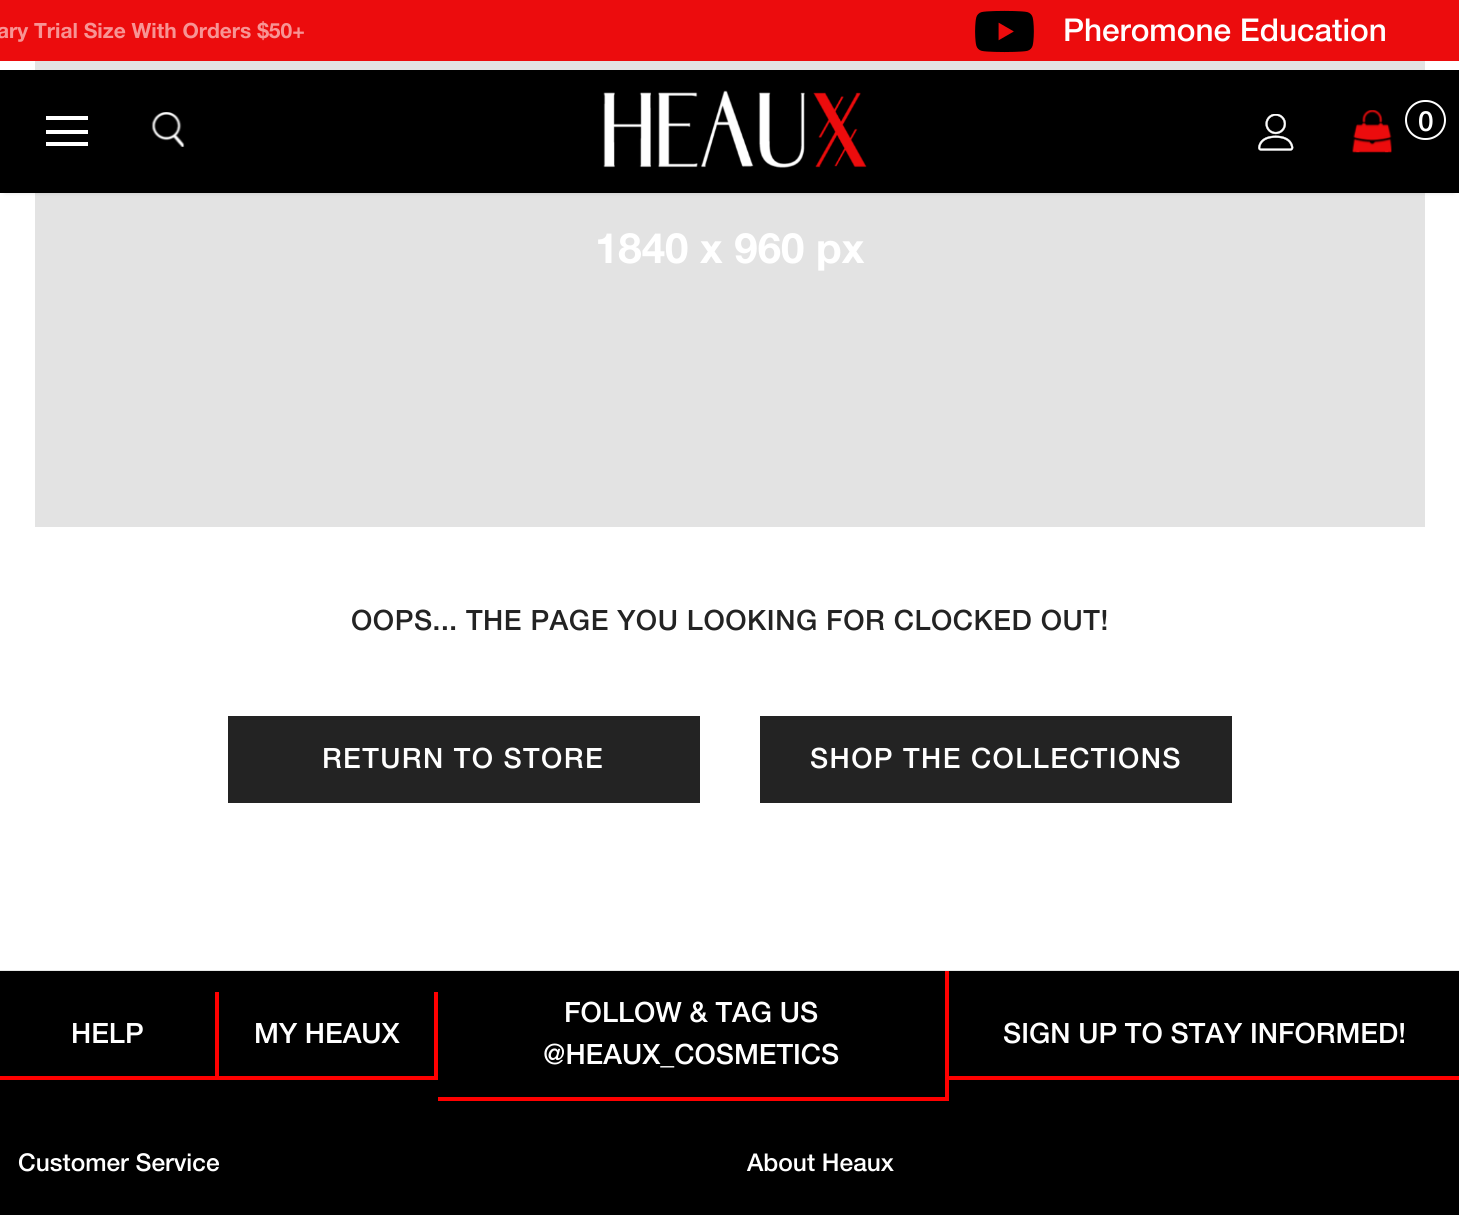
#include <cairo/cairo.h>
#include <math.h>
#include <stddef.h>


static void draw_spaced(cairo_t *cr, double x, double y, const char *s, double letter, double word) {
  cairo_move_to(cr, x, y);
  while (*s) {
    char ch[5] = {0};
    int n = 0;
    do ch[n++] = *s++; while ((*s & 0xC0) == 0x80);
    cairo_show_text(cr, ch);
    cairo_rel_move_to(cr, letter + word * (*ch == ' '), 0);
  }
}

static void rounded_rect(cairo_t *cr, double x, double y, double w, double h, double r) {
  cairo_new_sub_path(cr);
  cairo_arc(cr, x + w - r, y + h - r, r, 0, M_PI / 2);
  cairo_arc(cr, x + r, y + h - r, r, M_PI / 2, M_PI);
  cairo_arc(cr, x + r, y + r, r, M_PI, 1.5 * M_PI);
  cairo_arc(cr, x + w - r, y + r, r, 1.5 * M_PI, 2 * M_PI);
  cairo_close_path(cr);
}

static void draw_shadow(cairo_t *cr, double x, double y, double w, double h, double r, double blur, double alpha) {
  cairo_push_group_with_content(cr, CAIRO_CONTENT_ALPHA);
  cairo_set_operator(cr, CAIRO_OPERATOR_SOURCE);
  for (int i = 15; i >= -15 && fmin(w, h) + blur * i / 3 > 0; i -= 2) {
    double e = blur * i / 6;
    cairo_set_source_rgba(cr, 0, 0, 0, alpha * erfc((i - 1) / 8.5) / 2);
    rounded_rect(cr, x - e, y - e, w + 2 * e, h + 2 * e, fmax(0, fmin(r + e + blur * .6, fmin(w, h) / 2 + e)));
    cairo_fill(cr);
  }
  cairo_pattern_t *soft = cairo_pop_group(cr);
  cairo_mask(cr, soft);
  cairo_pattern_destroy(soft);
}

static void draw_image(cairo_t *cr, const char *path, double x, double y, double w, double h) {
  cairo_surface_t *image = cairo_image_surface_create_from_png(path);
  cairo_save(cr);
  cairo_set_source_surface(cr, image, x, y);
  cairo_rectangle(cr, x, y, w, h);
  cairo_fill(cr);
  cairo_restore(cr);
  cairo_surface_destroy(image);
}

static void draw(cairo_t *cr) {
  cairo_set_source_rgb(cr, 1, 1, 1);
  cairo_paint(cr);
  cairo_set_source_rgb(cr, 236 / 255.0, 12 / 255.0, 13 / 255.0);
  cairo_rectangle(cr, 0, 0, 1459, 61);
  cairo_fill(cr);
  draw_image(cr, "images/1.png", 975, 10, 59, 43);
  cairo_set_source_rgb(cr, 227 / 255.0, 227 / 255.0, 227 / 255.0);
  cairo_rectangle(cr, 35, 61, 1390, 466);
  cairo_fill(cr);
  cairo_set_source_rgb(cr, 0, 0, 0);
  draw_shadow(cr, 5, 81, 1449, 112, 0, 2.5, 0.12);
  cairo_set_source_rgb(cr, 0, 0, 0);
  cairo_rectangle(cr, 0, 70, 1459, 123);
  cairo_fill(cr);
  cairo_set_source_rgb(cr, 1, 1, 1);
  cairo_rectangle(cr, 46, 116, 42, 4);
  cairo_fill(cr);
  cairo_rectangle(cr, 46, 130, 42, 4);
  cairo_fill(cr);
  cairo_rectangle(cr, 46, 142, 42, 4);
  cairo_fill(cr);
  draw_image(cr, "images/2.png", 151, 112, 34, 35);
  draw_image(cr, "images/3.png", 603, 90, 264, 78);
  draw_image(cr, "images/4.png", 1258, 114, 36, 37);
  draw_image(cr, "images/5.png", 1352, 110, 40, 43);
  rounded_rect(cr, 1406, 101, 39, 38, 19);
  cairo_stroke(cr);
  cairo_set_source_rgb(cr, 35 / 255.0, 35 / 255.0, 35 / 255.0);
  cairo_rectangle(cr, 228, 716, 472, 87);
  cairo_fill(cr);
  cairo_rectangle(cr, 760, 716, 472, 87);
  cairo_fill(cr);
  cairo_set_source_rgb(cr, 231 / 255.0, 232 / 255.0, 231 / 255.0);
  cairo_rectangle(cr, 0, 970, 1459, 1);
  cairo_fill(cr);
  cairo_set_source_rgb(cr, 0, 0, 0);
  cairo_rectangle(cr, 0, 971, 1459, 244);
  cairo_fill(cr);
  cairo_set_source_rgb(cr, 1, 0, 0);
  cairo_rectangle(cr, 215, 992, 4, 88);
  cairo_fill(cr);
  cairo_rectangle(cr, 0, 1076, 219, 4);
  cairo_fill(cr);
  cairo_rectangle(cr, 434, 992, 4, 88);
  cairo_fill(cr);
  cairo_rectangle(cr, 219, 1076, 219, 4);
  cairo_fill(cr);
  cairo_rectangle(cr, 945, 971, 4, 130);
  cairo_fill(cr);
  cairo_rectangle(cr, 438, 1097, 511, 4);
  cairo_fill(cr);
  cairo_rectangle(cr, 949, 1076, 510, 4);
  cairo_fill(cr);
  cairo_select_font_face(cr, "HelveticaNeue", CAIRO_FONT_SLANT_NORMAL, CAIRO_FONT_WEIGHT_BOLD);
  cairo_set_font_size(cr, 21);
  cairo_set_source_rgb(cr, 247 / 255.0, 148 / 255.0, 148 / 255.0);
  cairo_move_to(cr, -3, 38);
  cairo_show_text(cr, "ary Trial Size With Orders $50+");
  cairo_select_font_face(cr, "HelveticaNeue Medium", CAIRO_FONT_SLANT_NORMAL, CAIRO_FONT_WEIGHT_NORMAL);
  cairo_set_font_size(cr, 31.5);
  cairo_set_source_rgb(cr, 1, 1, 1);
  cairo_move_to(cr, 1063, 41);
  cairo_show_text(cr, "Pheromone Education");
  cairo_set_font_size(cr, 28);
  cairo_move_to(cr, 1418, 131);
  cairo_show_text(cr, "0");
  cairo_select_font_face(cr, "HelveticaNeue", CAIRO_FONT_SLANT_NORMAL, CAIRO_FONT_WEIGHT_BOLD);
  cairo_set_font_size(cr, 42);
  cairo_move_to(cr, 595, 263);
  cairo_show_text(cr, "1840 x 960 px");
  cairo_select_font_face(cr, "HelveticaNeue Medium", CAIRO_FONT_SLANT_NORMAL, CAIRO_FONT_WEIGHT_NORMAL);
  cairo_set_font_size(cr, 28);
  cairo_set_source_rgb(cr, 35 / 255.0, 35 / 255.0, 35 / 255.0);
  draw_spaced(cr, 351, 630, "OOPS... THE PAGE YOU LOOKING FOR CLOCKED OUT!", 0.55, 0);
  cairo_set_source_rgb(cr, 1, 1, 1);
  draw_spaced(cr, 322, 768, "RETURN TO STORE", 1.4, 0);
  draw_spaced(cr, 810, 768, "SHOP THE COLLECTIONS", 1.4, 0);
  cairo_move_to(cr, 71, 1043);
  cairo_show_text(cr, "HELP");
  cairo_move_to(cr, 254, 1043);
  cairo_show_text(cr, "MY HEAUX");
  cairo_move_to(cr, 564, 1022);
  cairo_show_text(cr, "FOLLOW & TAG US");
  cairo_move_to(cr, 543, 1064);
  cairo_show_text(cr, "@HEAUX_COSMETICS");
  cairo_move_to(cr, 1003, 1043);
  cairo_show_text(cr, "SIGN UP TO STAY INFORMED!");
  cairo_set_font_size(cr, 24.5);
  cairo_move_to(cr, 18, 1171);
  cairo_show_text(cr, "Customer Service");
  cairo_move_to(cr, 747, 1171);
  cairo_show_text(cr, "About Heaux");
}

int main(void) {
  cairo_surface_t *surface = cairo_image_surface_create(CAIRO_FORMAT_RGB24, 1459, 1215);
  cairo_t *cr = cairo_create(surface);
  cairo_font_options_t *options = cairo_font_options_create();
  cairo_font_options_set_hint_metrics(options, CAIRO_HINT_METRICS_OFF);
  cairo_font_options_set_hint_style(options, CAIRO_HINT_STYLE_NONE);
  cairo_set_font_options(cr, options);
  cairo_set_miter_limit(cr, 4);
  draw(cr);
  cairo_surface_write_to_png(surface, "out.png");
  cairo_font_options_destroy(options);
  cairo_destroy(cr);
  cairo_surface_destroy(surface);
  return 0;
}
